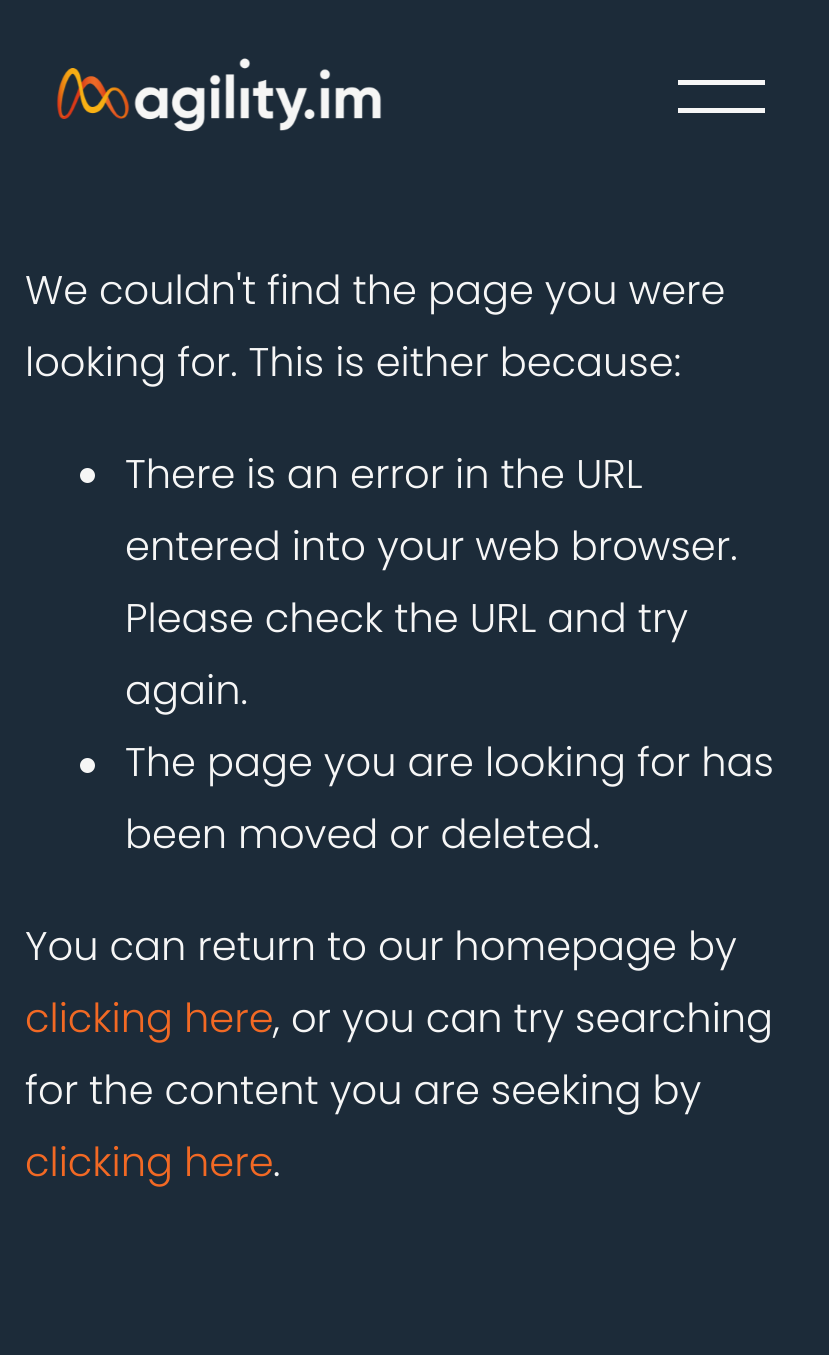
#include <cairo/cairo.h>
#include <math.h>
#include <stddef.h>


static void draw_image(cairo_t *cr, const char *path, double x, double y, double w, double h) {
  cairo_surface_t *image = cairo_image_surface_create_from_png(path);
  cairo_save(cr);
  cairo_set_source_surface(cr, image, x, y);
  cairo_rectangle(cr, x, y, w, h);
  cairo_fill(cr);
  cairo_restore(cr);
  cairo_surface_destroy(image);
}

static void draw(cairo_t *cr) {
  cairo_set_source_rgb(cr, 28 / 255.0, 43 / 255.0, 57 / 255.0);
  cairo_paint(cr);
  draw_image(cr, "images/1.png", 56, 58, 326, 74);
  cairo_set_source_rgb(cr, 246 / 255.0, 246 / 255.0, 246 / 255.0);
  cairo_rectangle(cr, 678, 80, 87, 5);
  cairo_fill(cr);
  cairo_rectangle(cr, 678, 108, 87, 5);
  cairo_fill(cr);
  cairo_arc(cr, 87.5, 475.5, 7.5, 0, 2 * M_PI);
  cairo_fill(cr);
  cairo_arc(cr, 87.5, 765.5, 7.5, 0, 2 * M_PI);
  cairo_fill(cr);
  cairo_select_font_face(cr, "Poppins Light", CAIRO_FONT_SLANT_NORMAL, CAIRO_FONT_WEIGHT_NORMAL);
  cairo_set_font_size(cr, 40);
  cairo_move_to(cr, 25, 304);
  cairo_show_text(cr, "We couldn't find the page you were");
  cairo_move_to(cr, 25, 376);
  cairo_show_text(cr, "looking for. This is either because:");
  cairo_move_to(cr, 125, 488);
  cairo_show_text(cr, "There is an error in the URL");
  cairo_move_to(cr, 125, 560);
  cairo_show_text(cr, "entered into your web browser.");
  cairo_move_to(cr, 125, 632);
  cairo_show_text(cr, "Please check the URL and try");
  cairo_move_to(cr, 125, 704);
  cairo_show_text(cr, "again.");
  cairo_move_to(cr, 125, 776);
  cairo_show_text(cr, "The page you are looking for has");
  cairo_move_to(cr, 125, 848);
  cairo_show_text(cr, "been moved or deleted.");
  cairo_move_to(cr, 25, 960);
  cairo_show_text(cr, "You can return to our homepage by");
  cairo_set_source_rgb(cr, 242 / 255.0, 105 / 255.0, 36 / 255.0);
  cairo_move_to(cr, 25, 1032);
  cairo_show_text(cr, "clicking here");
  cairo_set_source_rgb(cr, 246 / 255.0, 246 / 255.0, 246 / 255.0);
  cairo_move_to(cr, 273, 1032);
  cairo_show_text(cr, ", or you can try searching");
  cairo_move_to(cr, 25, 1104);
  cairo_show_text(cr, "for the content you are seeking by");
  cairo_set_source_rgb(cr, 242 / 255.0, 105 / 255.0, 36 / 255.0);
  cairo_move_to(cr, 25, 1176);
  cairo_show_text(cr, "clicking here");
  cairo_set_source_rgb(cr, 246 / 255.0, 246 / 255.0, 246 / 255.0);
  cairo_move_to(cr, 273, 1176);
  cairo_show_text(cr, ".");
}

int main(void) {
  cairo_surface_t *surface = cairo_image_surface_create(CAIRO_FORMAT_RGB24, 829, 1355);
  cairo_t *cr = cairo_create(surface);
  cairo_font_options_t *options = cairo_font_options_create();
  cairo_font_options_set_hint_metrics(options, CAIRO_HINT_METRICS_OFF);
  cairo_font_options_set_hint_style(options, CAIRO_HINT_STYLE_NONE);
  cairo_set_font_options(cr, options);
  cairo_set_miter_limit(cr, 4);
  draw(cr);
  cairo_surface_write_to_png(surface, "out.png");
  cairo_font_options_destroy(options);
  cairo_destroy(cr);
  cairo_surface_destroy(surface);
  return 0;
}
